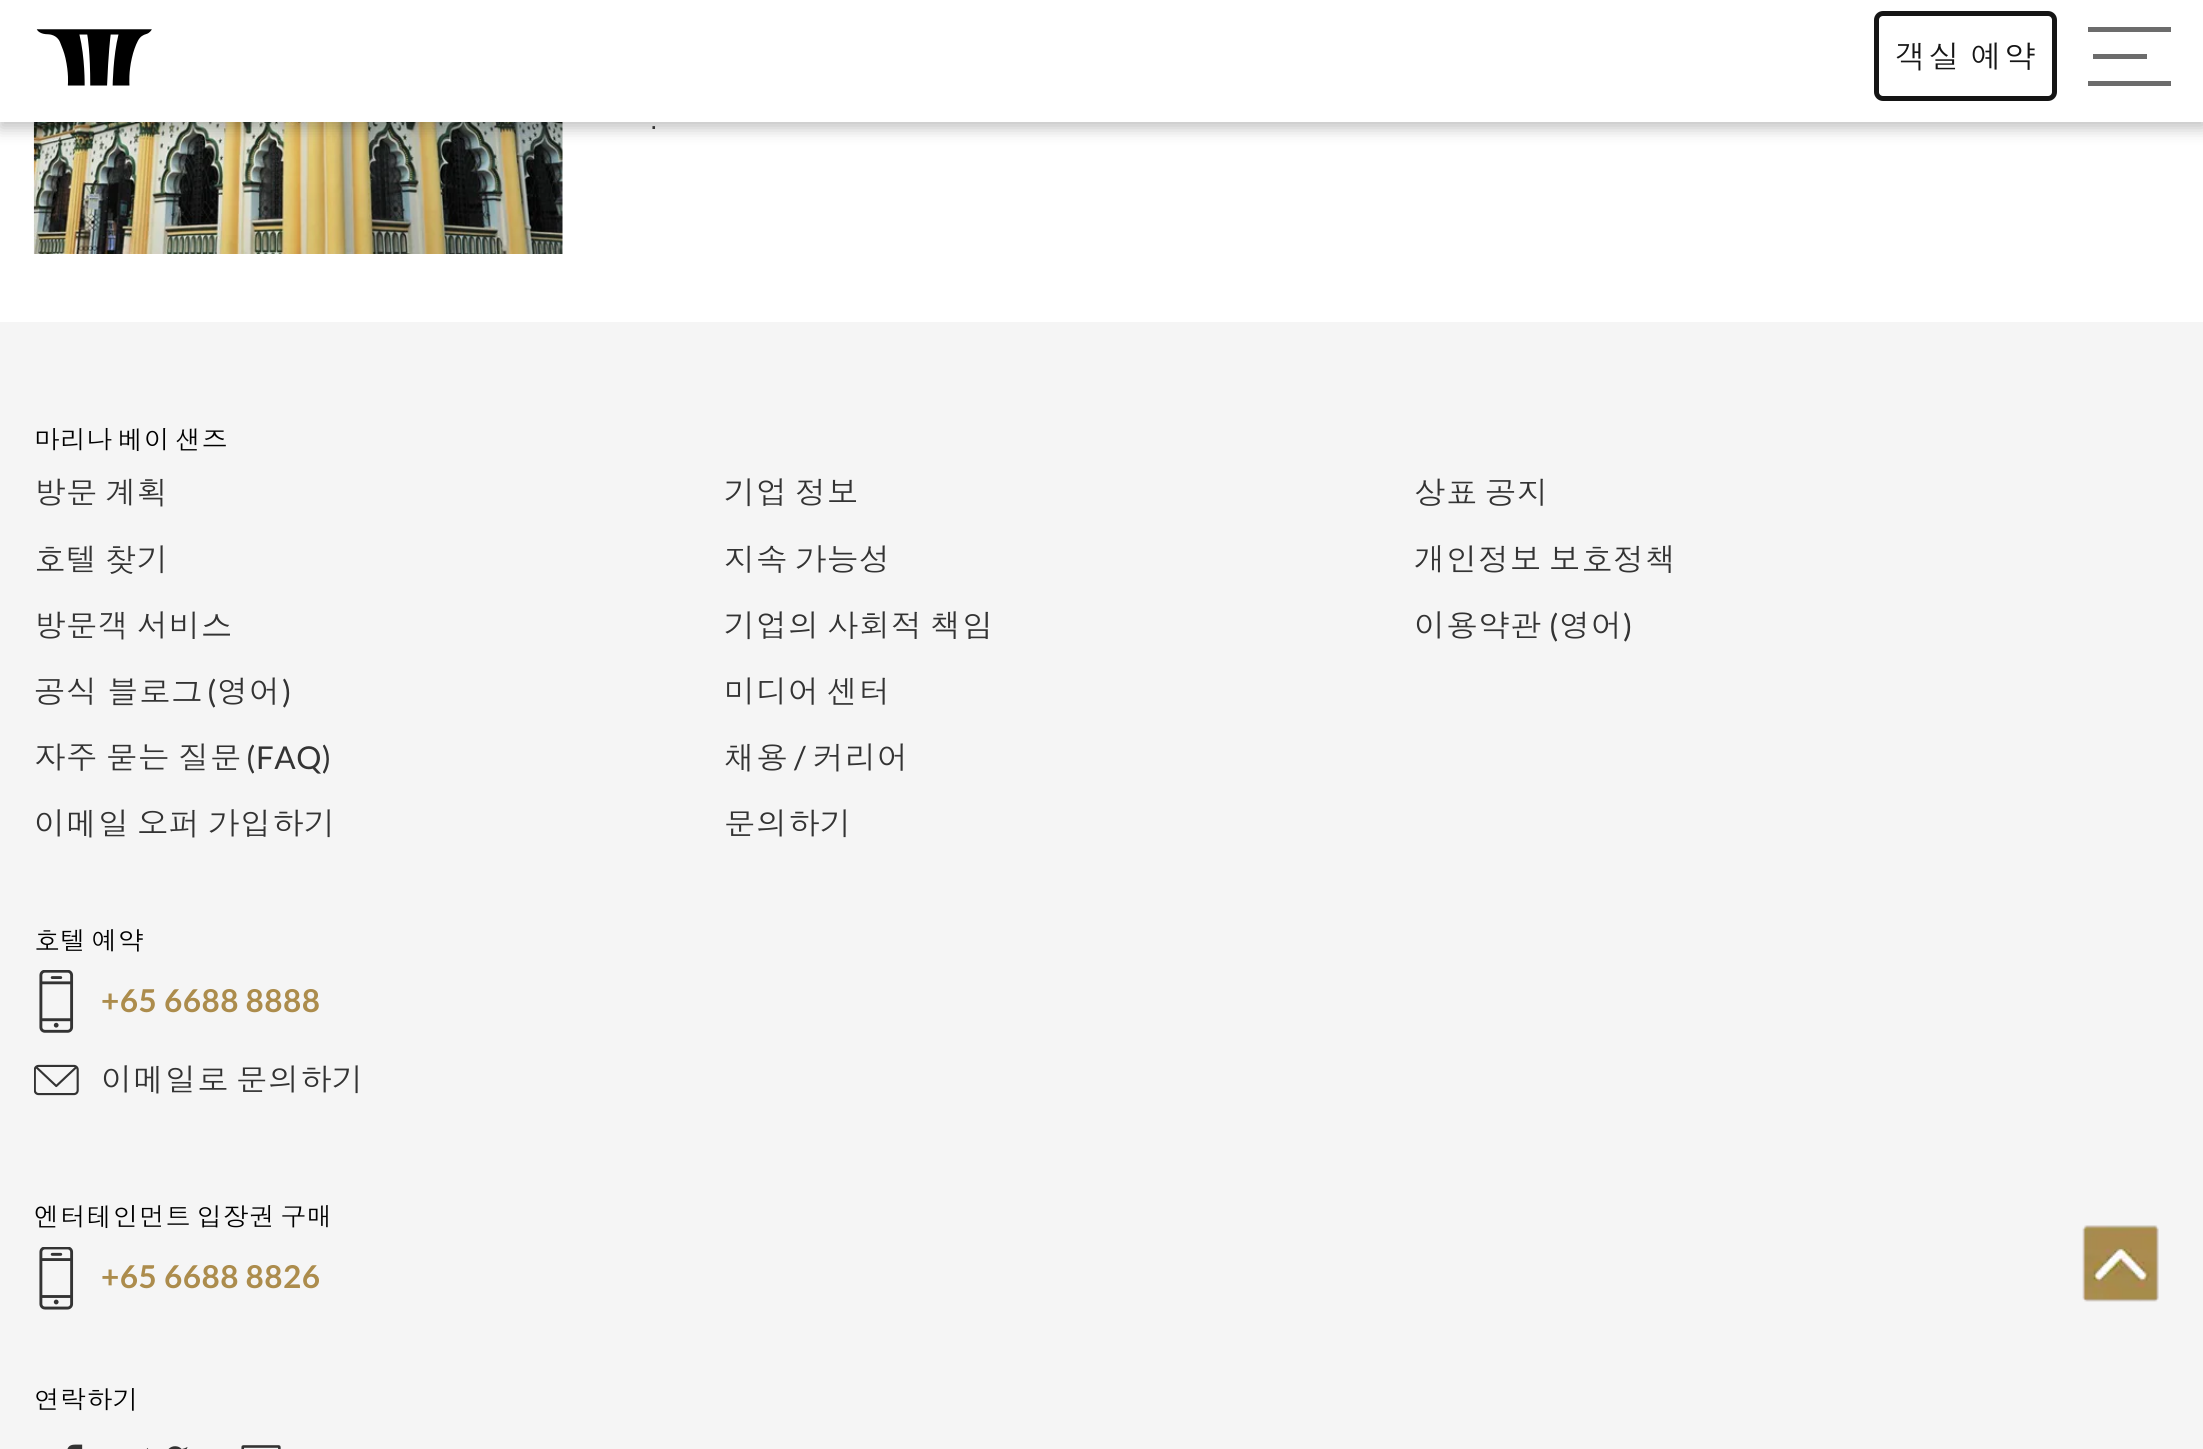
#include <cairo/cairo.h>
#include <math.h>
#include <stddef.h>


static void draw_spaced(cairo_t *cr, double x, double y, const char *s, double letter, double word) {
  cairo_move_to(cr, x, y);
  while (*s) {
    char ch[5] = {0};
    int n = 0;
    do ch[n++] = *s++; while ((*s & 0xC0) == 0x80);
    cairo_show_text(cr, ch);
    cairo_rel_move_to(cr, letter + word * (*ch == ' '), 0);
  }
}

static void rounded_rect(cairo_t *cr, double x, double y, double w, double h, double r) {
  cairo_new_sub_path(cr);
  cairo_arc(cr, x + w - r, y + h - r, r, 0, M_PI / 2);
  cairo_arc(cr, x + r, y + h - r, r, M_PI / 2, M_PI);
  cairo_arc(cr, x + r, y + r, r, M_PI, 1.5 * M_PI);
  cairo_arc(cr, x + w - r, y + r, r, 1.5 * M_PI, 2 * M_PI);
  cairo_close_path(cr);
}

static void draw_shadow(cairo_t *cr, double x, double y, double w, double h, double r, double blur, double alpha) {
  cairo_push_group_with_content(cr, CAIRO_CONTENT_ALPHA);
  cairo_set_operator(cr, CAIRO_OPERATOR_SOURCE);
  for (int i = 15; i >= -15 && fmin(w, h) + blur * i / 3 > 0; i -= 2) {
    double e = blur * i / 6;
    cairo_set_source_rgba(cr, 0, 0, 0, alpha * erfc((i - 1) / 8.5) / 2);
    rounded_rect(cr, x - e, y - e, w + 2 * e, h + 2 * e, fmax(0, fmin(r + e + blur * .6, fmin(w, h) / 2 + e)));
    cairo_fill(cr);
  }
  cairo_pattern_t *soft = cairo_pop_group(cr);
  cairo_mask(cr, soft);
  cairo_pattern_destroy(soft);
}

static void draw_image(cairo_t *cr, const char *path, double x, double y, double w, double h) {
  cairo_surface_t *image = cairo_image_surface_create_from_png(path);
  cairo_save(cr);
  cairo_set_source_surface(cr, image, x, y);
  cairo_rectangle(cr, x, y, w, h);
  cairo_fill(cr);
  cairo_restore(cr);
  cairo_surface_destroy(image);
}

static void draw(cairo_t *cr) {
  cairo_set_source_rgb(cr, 1, 1, 1);
  cairo_paint(cr);
  draw_image(cr, "images/2.png", 33, 122, 530, 132);
  cairo_set_source_rgb(cr, 0, 0, 0);
  draw_shadow(cr, 0, 7, 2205, 121, 0, 8, 0.25);
  cairo_set_source_rgb(cr, 1, 1, 1);
  cairo_rectangle(cr, 0, 0, 2203, 122);
  cairo_fill(cr);
  draw_image(cr, "images/1.png", 36, 29, 116, 57);
  rounded_rect(cr, 1876.5, 13.5, 178, 85, 6.5);
  cairo_set_source_rgb(cr, 21 / 255.0, 21 / 255.0, 21 / 255.0);
  cairo_set_line_width(cr, 5);
  cairo_stroke(cr);
  cairo_set_source_rgb(cr, 108 / 255.0, 108 / 255.0, 108 / 255.0);
  cairo_rectangle(cr, 2088, 27, 83, 5);
  cairo_fill(cr);
  cairo_rectangle(cr, 2093, 54, 54, 5);
  cairo_fill(cr);
  cairo_rectangle(cr, 2088, 81, 83, 5);
  cairo_fill(cr);
  cairo_set_source_rgb(cr, 245 / 255.0, 245 / 255.0, 245 / 255.0);
  cairo_rectangle(cr, 0, 322, 2203, 1127);
  cairo_fill(cr);
  draw_image(cr, "images/3.png", 39, 970, 35, 63);
  draw_image(cr, "images/4.png", 34, 1064, 45, 32);
  draw_image(cr, "images/5.png", 39, 1247, 35, 63);
  draw_image(cr, "images/6.png", 67, 1444, 16, 5);
  draw_image(cr, "images/7.png", 146, 1446, 42, 3);
  draw_image(cr, "images/8.png", 241, 1445, 40, 4);
  draw_image(cr, "images/9.png", 2082, 1225, 77, 77);
  cairo_select_font_face(cr, "Dotum", CAIRO_FONT_SLANT_NORMAL, CAIRO_FONT_WEIGHT_NORMAL);
  cairo_set_font_size(cr, 31.5);
  cairo_set_source_rgb(cr, 21 / 255.0, 21 / 255.0, 21 / 255.0);
  draw_spaced(cr, 1895, 68, "객실 예약", 2, -4);
  cairo_select_font_face(cr, "Liberation Sans", CAIRO_FONT_SLANT_NORMAL, CAIRO_FONT_WEIGHT_NORMAL);
  cairo_set_font_size(cr, 27);
  cairo_set_source_rgb(cr, 51 / 255.0, 51 / 255.0, 51 / 255.0);
  cairo_move_to(cr, 650, 129);
  cairo_show_text(cr, ".");
  cairo_select_font_face(cr, "Dotum", CAIRO_FONT_SLANT_NORMAL, CAIRO_FONT_WEIGHT_NORMAL);
  cairo_set_font_size(cr, 25.75);
  cairo_set_source_rgb(cr, 0, 0, 0);
  draw_spaced(cr, 34, 449, "마리나 베이 샌즈", 0.5, -4);
  cairo_set_font_size(cr, 31.5);
  cairo_set_source_rgb(cr, 51 / 255.0, 51 / 255.0, 51 / 255.0);
  draw_spaced(cr, 34, 504, "방문 계획", 0.5, -4);
  draw_spaced(cr, 34, 571, "호텔 찾기", 0.5, -4);
  draw_spaced(cr, 34, 637, "방문객 서비스", 0.5, -4);
  draw_spaced(cr, 34, 703, "공식 블로그", 0.5, -2);
  cairo_select_font_face(cr, "Lato", CAIRO_FONT_SLANT_NORMAL, CAIRO_FONT_WEIGHT_NORMAL);
  draw_spaced(cr, 207, 703, "(", 0.5, 0);
  cairo_select_font_face(cr, "Dotum", CAIRO_FONT_SLANT_NORMAL, CAIRO_FONT_WEIGHT_NORMAL);
  draw_spaced(cr, 217, 703, "영어", 0.5, 0);
  cairo_select_font_face(cr, "Lato", CAIRO_FONT_SLANT_NORMAL, CAIRO_FONT_WEIGHT_NORMAL);
  draw_spaced(cr, 282, 703, ")", 0.5, 0);
  cairo_select_font_face(cr, "Dotum", CAIRO_FONT_SLANT_NORMAL, CAIRO_FONT_WEIGHT_NORMAL);
  draw_spaced(cr, 34, 769, "자주 묻는 질문", 0.5, -3);
  cairo_select_font_face(cr, "Lato", CAIRO_FONT_SLANT_NORMAL, CAIRO_FONT_WEIGHT_NORMAL);
  draw_spaced(cr, 246, 769, "(FAQ)", 0.5, 0);
  cairo_select_font_face(cr, "Dotum", CAIRO_FONT_SLANT_NORMAL, CAIRO_FONT_WEIGHT_NORMAL);
  draw_spaced(cr, 34, 835, "이메일 오퍼 가입하기", 0.5, -4);
  draw_spaced(cr, 724, 504, "기업 정보", 0.5, -4);
  draw_spaced(cr, 724, 571, "지속 가능성", 0.5, -4);
  draw_spaced(cr, 724, 637, "기업의 사회적 책임", 0.5, -4);
  draw_spaced(cr, 724, 703, "미디어 센터", 0.5, -4);
  draw_spaced(cr, 724, 769, "채용", 0.5, 0);
  cairo_select_font_face(cr, "Lato", CAIRO_FONT_SLANT_NORMAL, CAIRO_FONT_WEIGHT_NORMAL);
  draw_spaced(cr, 794, 769, "/", 0.5, 0);
  cairo_select_font_face(cr, "Dotum", CAIRO_FONT_SLANT_NORMAL, CAIRO_FONT_WEIGHT_NORMAL);
  draw_spaced(cr, 813, 769, "커리어", 0.5, 0);
  draw_spaced(cr, 724, 835, "문의하기", 0.5, 0);
  draw_spaced(cr, 1414, 504, "상표 공지", 0.5, -4);
  draw_spaced(cr, 1414, 571, "개인정보 보호정책", 0.5, -4);
  draw_spaced(cr, 1414, 637, "이용약관", 0.5, 0);
  cairo_select_font_face(cr, "Lato", CAIRO_FONT_SLANT_NORMAL, CAIRO_FONT_WEIGHT_NORMAL);
  draw_spaced(cr, 1549, 637, "(", 0.5, 0);
  cairo_select_font_face(cr, "Dotum", CAIRO_FONT_SLANT_NORMAL, CAIRO_FONT_WEIGHT_NORMAL);
  draw_spaced(cr, 1559, 637, "영어", 0.5, 0);
  cairo_select_font_face(cr, "Lato", CAIRO_FONT_SLANT_NORMAL, CAIRO_FONT_WEIGHT_NORMAL);
  draw_spaced(cr, 1623, 637, ")", 0.5, 0);
  cairo_select_font_face(cr, "Dotum", CAIRO_FONT_SLANT_NORMAL, CAIRO_FONT_WEIGHT_NORMAL);
  cairo_set_font_size(cr, 25.75);
  cairo_set_source_rgb(cr, 0, 0, 0);
  draw_spaced(cr, 34, 950, "호텔 예약", 0.5, -4);
  cairo_select_font_face(cr, "Lato", CAIRO_FONT_SLANT_NORMAL, CAIRO_FONT_WEIGHT_BOLD);
  cairo_set_font_size(cr, 31.5);
  cairo_set_source_rgb(cr, 172 / 255.0, 140 / 255.0, 76 / 255.0);
  draw_spaced(cr, 101, 1012, "+65 6688 8888", 0.5, 0);
  cairo_select_font_face(cr, "Dotum", CAIRO_FONT_SLANT_NORMAL, CAIRO_FONT_WEIGHT_NORMAL);
  cairo_set_source_rgb(cr, 51 / 255.0, 51 / 255.0, 51 / 255.0);
  draw_spaced(cr, 101, 1091, "이메일로 문의하기", 0.5, -4);
  cairo_set_font_size(cr, 25.75);
  cairo_set_source_rgb(cr, 0, 0, 0);
  draw_spaced(cr, 34, 1226, "엔터테인먼트 입장권 구매", 0.5, -4);
  cairo_select_font_face(cr, "Lato", CAIRO_FONT_SLANT_NORMAL, CAIRO_FONT_WEIGHT_BOLD);
  cairo_set_font_size(cr, 31.5);
  cairo_set_source_rgb(cr, 172 / 255.0, 140 / 255.0, 76 / 255.0);
  draw_spaced(cr, 101, 1288, "+65 6688 8826", 0.5, 0);
  cairo_select_font_face(cr, "Dotum", CAIRO_FONT_SLANT_NORMAL, CAIRO_FONT_WEIGHT_NORMAL);
  cairo_set_font_size(cr, 25.75);
  cairo_set_source_rgb(cr, 0, 0, 0);
  draw_spaced(cr, 34, 1409, "연락하기", 0.5, 0);
}

int main(void) {
  cairo_surface_t *surface = cairo_image_surface_create(CAIRO_FORMAT_RGB24, 2203, 1449);
  cairo_t *cr = cairo_create(surface);
  cairo_font_options_t *options = cairo_font_options_create();
  cairo_font_options_set_hint_metrics(options, CAIRO_HINT_METRICS_OFF);
  cairo_font_options_set_hint_style(options, CAIRO_HINT_STYLE_NONE);
  cairo_set_font_options(cr, options);
  cairo_set_miter_limit(cr, 4);
  draw(cr);
  cairo_surface_write_to_png(surface, "out.png");
  cairo_font_options_destroy(options);
  cairo_destroy(cr);
  cairo_surface_destroy(surface);
  return 0;
}
